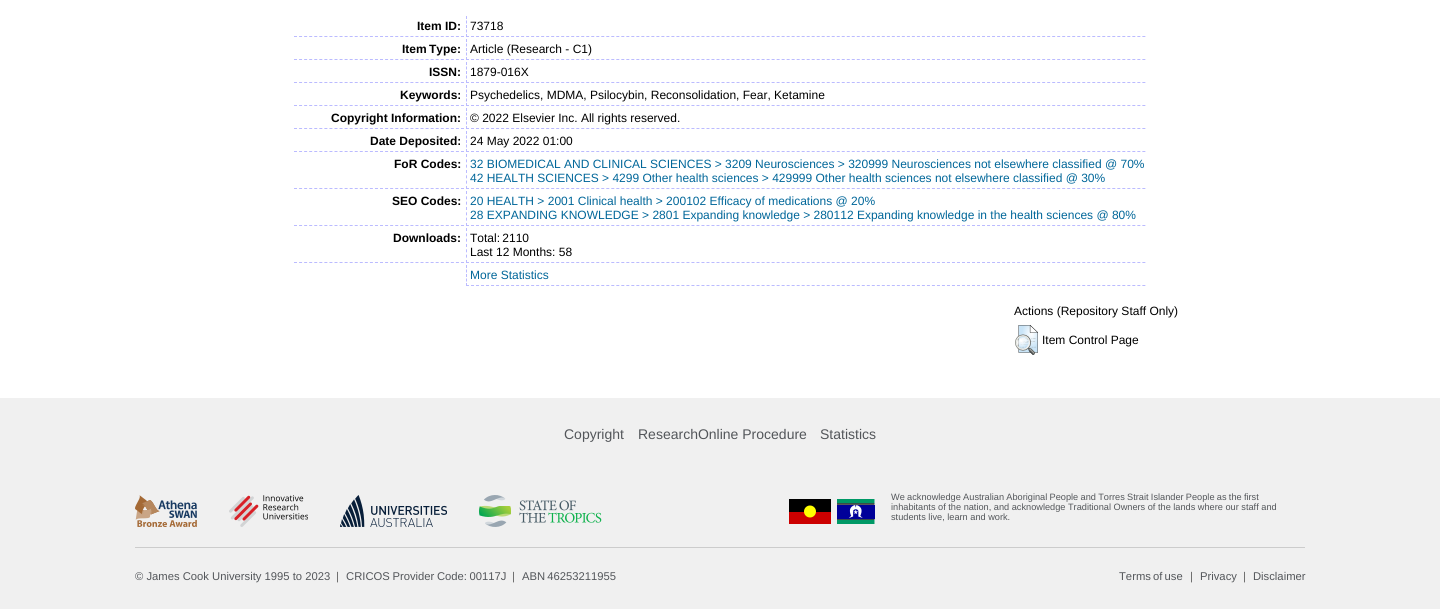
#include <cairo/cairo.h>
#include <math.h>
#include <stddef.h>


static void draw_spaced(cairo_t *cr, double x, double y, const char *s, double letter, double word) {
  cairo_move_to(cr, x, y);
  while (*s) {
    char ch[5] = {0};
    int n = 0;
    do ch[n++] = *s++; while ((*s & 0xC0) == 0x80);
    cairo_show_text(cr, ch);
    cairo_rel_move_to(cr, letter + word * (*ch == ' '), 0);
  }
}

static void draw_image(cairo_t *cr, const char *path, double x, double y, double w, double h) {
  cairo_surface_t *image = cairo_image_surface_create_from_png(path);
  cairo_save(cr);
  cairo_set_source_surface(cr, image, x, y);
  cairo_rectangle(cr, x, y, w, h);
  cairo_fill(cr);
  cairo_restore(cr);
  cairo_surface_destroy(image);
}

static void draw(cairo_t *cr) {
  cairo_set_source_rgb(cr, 1, 1, 1);
  cairo_paint(cr);
  cairo_new_path(cr);
  cairo_move_to(cr, 294, 36.5);
  cairo_line_to(cr, 464, 36.5);
  cairo_set_source_rgb(cr, 187 / 255.0, 187 / 255.0, 1);
  cairo_set_line_width(cr, 1);
  cairo_set_dash(cr, (double[]){3, 2.06}, 2, 0);
  cairo_stroke(cr);
  cairo_new_path(cr);
  cairo_move_to(cr, 466, 36.5);
  cairo_line_to(cr, 1146, 36.5);
  cairo_set_dash(cr, (double[]){3, 2.01}, 2, 0);
  cairo_stroke(cr);
  cairo_new_path(cr);
  cairo_move_to(cr, 466.5, 16);
  cairo_line_to(cr, 466.5, 37);
  cairo_set_dash(cr, (double[]){3, 1.5}, 2, 0);
  cairo_stroke(cr);
  cairo_new_path(cr);
  cairo_move_to(cr, 294, 59.5);
  cairo_line_to(cr, 464, 59.5);
  cairo_set_dash(cr, (double[]){3, 2.06}, 2, 0);
  cairo_stroke(cr);
  cairo_new_path(cr);
  cairo_move_to(cr, 466, 59.5);
  cairo_line_to(cr, 1146, 59.5);
  cairo_set_dash(cr, (double[]){3, 2.01}, 2, 0);
  cairo_stroke(cr);
  cairo_new_path(cr);
  cairo_move_to(cr, 466.5, 39);
  cairo_line_to(cr, 466.5, 60);
  cairo_set_dash(cr, (double[]){3, 1.5}, 2, 0);
  cairo_stroke(cr);
  cairo_new_path(cr);
  cairo_move_to(cr, 294, 82.5);
  cairo_line_to(cr, 464, 82.5);
  cairo_set_dash(cr, (double[]){3, 2.06}, 2, 0);
  cairo_stroke(cr);
  cairo_new_path(cr);
  cairo_move_to(cr, 466, 82.5);
  cairo_line_to(cr, 1146, 82.5);
  cairo_set_dash(cr, (double[]){3, 2.01}, 2, 0);
  cairo_stroke(cr);
  cairo_new_path(cr);
  cairo_move_to(cr, 466.5, 62);
  cairo_line_to(cr, 466.5, 83);
  cairo_set_dash(cr, (double[]){3, 1.5}, 2, 0);
  cairo_stroke(cr);
  cairo_new_path(cr);
  cairo_move_to(cr, 294, 105.5);
  cairo_line_to(cr, 464, 105.5);
  cairo_set_dash(cr, (double[]){3, 2.06}, 2, 0);
  cairo_stroke(cr);
  cairo_new_path(cr);
  cairo_move_to(cr, 466, 105.5);
  cairo_line_to(cr, 1146, 105.5);
  cairo_set_dash(cr, (double[]){3, 2.01}, 2, 0);
  cairo_stroke(cr);
  cairo_new_path(cr);
  cairo_move_to(cr, 466.5, 85);
  cairo_line_to(cr, 466.5, 106);
  cairo_set_dash(cr, (double[]){3, 1.5}, 2, 0);
  cairo_stroke(cr);
  cairo_new_path(cr);
  cairo_move_to(cr, 294, 128.5);
  cairo_line_to(cr, 464, 128.5);
  cairo_set_dash(cr, (double[]){3, 2.06}, 2, 0);
  cairo_stroke(cr);
  cairo_new_path(cr);
  cairo_move_to(cr, 466, 128.5);
  cairo_line_to(cr, 1146, 128.5);
  cairo_set_dash(cr, (double[]){3, 2.01}, 2, 0);
  cairo_stroke(cr);
  cairo_new_path(cr);
  cairo_move_to(cr, 466.5, 108);
  cairo_line_to(cr, 466.5, 129);
  cairo_set_dash(cr, (double[]){3, 1.5}, 2, 0);
  cairo_stroke(cr);
  cairo_new_path(cr);
  cairo_move_to(cr, 294, 151.5);
  cairo_line_to(cr, 464, 151.5);
  cairo_set_dash(cr, (double[]){3, 2.06}, 2, 0);
  cairo_stroke(cr);
  cairo_new_path(cr);
  cairo_move_to(cr, 466, 151.5);
  cairo_line_to(cr, 1146, 151.5);
  cairo_set_dash(cr, (double[]){3, 2.01}, 2, 0);
  cairo_stroke(cr);
  cairo_new_path(cr);
  cairo_move_to(cr, 466.5, 131);
  cairo_line_to(cr, 466.5, 152);
  cairo_set_dash(cr, (double[]){3, 1.5}, 2, 0);
  cairo_stroke(cr);
  cairo_new_path(cr);
  cairo_move_to(cr, 294, 188.5);
  cairo_line_to(cr, 464, 188.5);
  cairo_set_dash(cr, (double[]){3, 2.06}, 2, 0);
  cairo_stroke(cr);
  cairo_new_path(cr);
  cairo_move_to(cr, 466, 188.5);
  cairo_line_to(cr, 1146, 188.5);
  cairo_set_dash(cr, (double[]){3, 2.01}, 2, 0);
  cairo_stroke(cr);
  cairo_new_path(cr);
  cairo_move_to(cr, 466.5, 154);
  cairo_line_to(cr, 466.5, 189);
  cairo_set_dash(cr, (double[]){3, 2.33}, 2, 0);
  cairo_stroke(cr);
  cairo_new_path(cr);
  cairo_move_to(cr, 294, 225.5);
  cairo_line_to(cr, 464, 225.5);
  cairo_set_dash(cr, (double[]){3, 2.06}, 2, 0);
  cairo_stroke(cr);
  cairo_new_path(cr);
  cairo_move_to(cr, 466, 225.5);
  cairo_line_to(cr, 1146, 225.5);
  cairo_set_dash(cr, (double[]){3, 2.01}, 2, 0);
  cairo_stroke(cr);
  cairo_new_path(cr);
  cairo_move_to(cr, 466.5, 191);
  cairo_line_to(cr, 466.5, 226);
  cairo_set_dash(cr, (double[]){3, 2.33}, 2, 0);
  cairo_stroke(cr);
  cairo_new_path(cr);
  cairo_move_to(cr, 294, 262.5);
  cairo_line_to(cr, 464, 262.5);
  cairo_set_dash(cr, (double[]){3, 2.06}, 2, 0);
  cairo_stroke(cr);
  cairo_new_path(cr);
  cairo_move_to(cr, 466, 262.5);
  cairo_line_to(cr, 1146, 262.5);
  cairo_set_dash(cr, (double[]){3, 2.01}, 2, 0);
  cairo_stroke(cr);
  cairo_new_path(cr);
  cairo_move_to(cr, 466.5, 228);
  cairo_line_to(cr, 466.5, 263);
  cairo_set_dash(cr, (double[]){3, 2.33}, 2, 0);
  cairo_stroke(cr);
  cairo_new_path(cr);
  cairo_move_to(cr, 466, 285.5);
  cairo_line_to(cr, 1146, 285.5);
  cairo_set_dash(cr, (double[]){3, 2.01}, 2, 0);
  cairo_stroke(cr);
  cairo_new_path(cr);
  cairo_move_to(cr, 466.5, 265);
  cairo_line_to(cr, 466.5, 286);
  cairo_set_dash(cr, (double[]){3, 1.5}, 2, 0);
  cairo_stroke(cr);
  draw_image(cr, "images/1.png", 1015, 325, 23, 30);
  cairo_set_source_rgb(cr, 240 / 255.0, 240 / 255.0, 240 / 255.0);
  cairo_rectangle(cr, 0, 398, 1440, 211);
  cairo_fill(cr);
  draw_image(cr, "images/2.png", 135, 495, 62, 32);
  draw_image(cr, "images/3.png", 229, 495, 79, 32);
  draw_image(cr, "images/4.png", 340, 495, 107, 32);
  draw_image(cr, "images/5.png", 479, 495, 123, 32);
  cairo_set_source_rgb(cr, 0, 0, 0);
  cairo_rectangle(cr, 789, 499, 42, 13);
  cairo_fill(cr);
  cairo_set_source_rgb(cr, 204 / 255.0, 0, 0);
  cairo_rectangle(cr, 789, 512, 42, 12);
  cairo_fill(cr);
  cairo_set_source_rgb(cr, 1, 1, 0);
  cairo_arc(cr, 810, 511.5, 6, 0, 2 * M_PI);
  cairo_fill(cr);
  draw_image(cr, "images/6.png", 837, 499, 38, 25);
  cairo_set_source_rgb(cr, 204 / 255.0, 204 / 255.0, 204 / 255.0);
  cairo_rectangle(cr, 135, 547, 1170, 1);
  cairo_fill(cr);
  cairo_select_font_face(cr, "Liberation Sans", CAIRO_FONT_SLANT_NORMAL, CAIRO_FONT_WEIGHT_BOLD);
  cairo_set_font_size(cr, 12);
  cairo_set_source_rgb(cr, 0, 0, 0);
  cairo_move_to(cr, 417, 30);
  cairo_show_text(cr, "Item ID:");
  cairo_select_font_face(cr, "Liberation Sans", CAIRO_FONT_SLANT_NORMAL, CAIRO_FONT_WEIGHT_NORMAL);
  cairo_move_to(cr, 470, 30);
  cairo_show_text(cr, "73718");
  cairo_select_font_face(cr, "Liberation Sans", CAIRO_FONT_SLANT_NORMAL, CAIRO_FONT_WEIGHT_BOLD);
  draw_spaced(cr, 402, 53, "Item Type:", 0, -1);
  cairo_select_font_face(cr, "Liberation Sans", CAIRO_FONT_SLANT_NORMAL, CAIRO_FONT_WEIGHT_NORMAL);
  cairo_move_to(cr, 470, 53);
  cairo_show_text(cr, "Article (Research - C1)");
  cairo_select_font_face(cr, "Liberation Sans", CAIRO_FONT_SLANT_NORMAL, CAIRO_FONT_WEIGHT_BOLD);
  cairo_move_to(cr, 429, 76);
  cairo_show_text(cr, "ISSN:");
  cairo_select_font_face(cr, "Liberation Sans", CAIRO_FONT_SLANT_NORMAL, CAIRO_FONT_WEIGHT_NORMAL);
  cairo_move_to(cr, 470, 76);
  cairo_show_text(cr, "1879-016X");
  cairo_select_font_face(cr, "Liberation Sans", CAIRO_FONT_SLANT_NORMAL, CAIRO_FONT_WEIGHT_BOLD);
  cairo_move_to(cr, 400, 99);
  cairo_show_text(cr, "Keywords:");
  cairo_select_font_face(cr, "Liberation Sans", CAIRO_FONT_SLANT_NORMAL, CAIRO_FONT_WEIGHT_NORMAL);
  cairo_move_to(cr, 470, 99);
  cairo_show_text(cr, "Psychedelics, MDMA, Psilocybin, Reconsolidation, Fear, Ketamine");
  cairo_select_font_face(cr, "Liberation Sans", CAIRO_FONT_SLANT_NORMAL, CAIRO_FONT_WEIGHT_BOLD);
  cairo_move_to(cr, 331, 122);
  cairo_show_text(cr, "Copyright Information:");
  cairo_select_font_face(cr, "Liberation Sans", CAIRO_FONT_SLANT_NORMAL, CAIRO_FONT_WEIGHT_NORMAL);
  cairo_move_to(cr, 470, 122);
  cairo_show_text(cr, "© 2022 Elsevier Inc. All rights reserved.");
  cairo_select_font_face(cr, "Liberation Sans", CAIRO_FONT_SLANT_NORMAL, CAIRO_FONT_WEIGHT_BOLD);
  cairo_move_to(cr, 370, 145);
  cairo_show_text(cr, "Date Deposited:");
  cairo_select_font_face(cr, "Liberation Sans", CAIRO_FONT_SLANT_NORMAL, CAIRO_FONT_WEIGHT_NORMAL);
  cairo_move_to(cr, 470, 145);
  cairo_show_text(cr, "24 May 2022 01:00");
  cairo_select_font_face(cr, "Liberation Sans", CAIRO_FONT_SLANT_NORMAL, CAIRO_FONT_WEIGHT_BOLD);
  cairo_move_to(cr, 394, 168);
  cairo_show_text(cr, "FoR Codes:");
  cairo_select_font_face(cr, "Liberation Sans", CAIRO_FONT_SLANT_NORMAL, CAIRO_FONT_WEIGHT_NORMAL);
  cairo_set_source_rgb(cr, 0, 102 / 255.0, 153 / 255.0);
  cairo_move_to(cr, 470, 168);
  cairo_show_text(cr, "32 BIOMEDICAL AND CLINICAL SCIENCES > 3209 Neurosciences > 320999 Neurosciences not elsewhere classified @ 70%");
  cairo_move_to(cr, 470, 182);
  cairo_show_text(cr, "42 HEALTH SCIENCES > 4299 Other health sciences > 429999 Other health sciences not elsewhere classified @ 30%");
  cairo_select_font_face(cr, "Liberation Sans", CAIRO_FONT_SLANT_NORMAL, CAIRO_FONT_WEIGHT_BOLD);
  cairo_set_source_rgb(cr, 0, 0, 0);
  cairo_move_to(cr, 392, 205);
  cairo_show_text(cr, "SEO Codes:");
  cairo_select_font_face(cr, "Liberation Sans", CAIRO_FONT_SLANT_NORMAL, CAIRO_FONT_WEIGHT_NORMAL);
  cairo_set_source_rgb(cr, 0, 102 / 255.0, 153 / 255.0);
  cairo_move_to(cr, 470, 205);
  cairo_show_text(cr, "20 HEALTH > 2001 Clinical health > 200102 Efficacy of medications @ 20%");
  cairo_move_to(cr, 470, 219);
  cairo_show_text(cr, "28 EXPANDING KNOWLEDGE > 2801 Expanding knowledge > 280112 Expanding knowledge in the health sciences @ 80%");
  cairo_select_font_face(cr, "Liberation Sans", CAIRO_FONT_SLANT_NORMAL, CAIRO_FONT_WEIGHT_BOLD);
  cairo_set_source_rgb(cr, 0, 0, 0);
  cairo_move_to(cr, 393, 242);
  cairo_show_text(cr, "Downloads:");
  cairo_select_font_face(cr, "Liberation Sans", CAIRO_FONT_SLANT_NORMAL, CAIRO_FONT_WEIGHT_NORMAL);
  draw_spaced(cr, 470, 242, "Total: 2110", 0, -1);
  cairo_move_to(cr, 470, 256);
  cairo_show_text(cr, "Last 12 Months: 58");
  cairo_set_source_rgb(cr, 0, 102 / 255.0, 153 / 255.0);
  cairo_move_to(cr, 470, 279);
  cairo_show_text(cr, "More Statistics");
  cairo_set_source_rgb(cr, 0, 0, 0);
  cairo_move_to(cr, 1014, 315);
  cairo_show_text(cr, "Actions (Repository Staff Only)");
  cairo_move_to(cr, 1042, 344);
  cairo_show_text(cr, "Item Control Page");
  cairo_set_font_size(cr, 14);
  cairo_set_source_rgb(cr, 83 / 255.0, 86 / 255.0, 90 / 255.0);
  cairo_move_to(cr, 564, 439);
  cairo_show_text(cr, "Copyright");
  cairo_move_to(cr, 638, 439);
  cairo_show_text(cr, "ResearchOnline Procedure");
  cairo_move_to(cr, 820, 439);
  cairo_show_text(cr, "Statistics");
  cairo_set_font_size(cr, 9.2);
  draw_spaced(cr, 891, 500, "We acknowledge Australian Aboriginal People and Torres Strait Islander People as the first", 0, -0.25);
  cairo_move_to(cr, 891, 510);
  cairo_show_text(cr, "inhabitants of the nation, and acknowledge Traditional Owners of the lands where our staff and");
  cairo_move_to(cr, 891, 520);
  cairo_show_text(cr, "students live, learn and work.");
  cairo_set_font_size(cr, 11.25);
  cairo_move_to(cr, 135, 580);
  cairo_show_text(cr, "© James Cook University 1995 to 2023");
  cairo_set_source_rgb(cr, 102 / 255.0, 102 / 255.0, 102 / 255.0);
  cairo_move_to(cr, 336, 580);
  cairo_show_text(cr, "|");
  cairo_set_source_rgb(cr, 83 / 255.0, 86 / 255.0, 90 / 255.0);
  draw_spaced(cr, 346, 580, "CRICOS Provider Code: 00117J", 0, -0.5);
  cairo_set_source_rgb(cr, 102 / 255.0, 102 / 255.0, 102 / 255.0);
  cairo_move_to(cr, 512, 580);
  cairo_show_text(cr, "|");
  cairo_set_source_rgb(cr, 83 / 255.0, 86 / 255.0, 90 / 255.0);
  draw_spaced(cr, 522, 580, "ABN 46253211955", 0, -1);
  draw_spaced(cr, 1119, 580, "Terms of use", 0, -1);
  cairo_set_source_rgb(cr, 102 / 255.0, 102 / 255.0, 102 / 255.0);
  cairo_move_to(cr, 1190, 580);
  cairo_show_text(cr, "|");
  cairo_set_source_rgb(cr, 83 / 255.0, 86 / 255.0, 90 / 255.0);
  cairo_move_to(cr, 1200, 580);
  cairo_show_text(cr, "Privacy");
  cairo_set_source_rgb(cr, 102 / 255.0, 102 / 255.0, 102 / 255.0);
  cairo_move_to(cr, 1243, 580);
  cairo_show_text(cr, "|");
  cairo_set_source_rgb(cr, 83 / 255.0, 86 / 255.0, 90 / 255.0);
  cairo_move_to(cr, 1253, 580);
  cairo_show_text(cr, "Disclaimer");
}

int main(void) {
  cairo_surface_t *surface = cairo_image_surface_create(CAIRO_FORMAT_RGB24, 1440, 609);
  cairo_t *cr = cairo_create(surface);
  cairo_font_options_t *options = cairo_font_options_create();
  cairo_font_options_set_hint_metrics(options, CAIRO_HINT_METRICS_OFF);
  cairo_font_options_set_hint_style(options, CAIRO_HINT_STYLE_NONE);
  cairo_set_font_options(cr, options);
  cairo_set_miter_limit(cr, 4);
  draw(cr);
  cairo_surface_write_to_png(surface, "out.png");
  cairo_font_options_destroy(options);
  cairo_destroy(cr);
  cairo_surface_destroy(surface);
  return 0;
}
